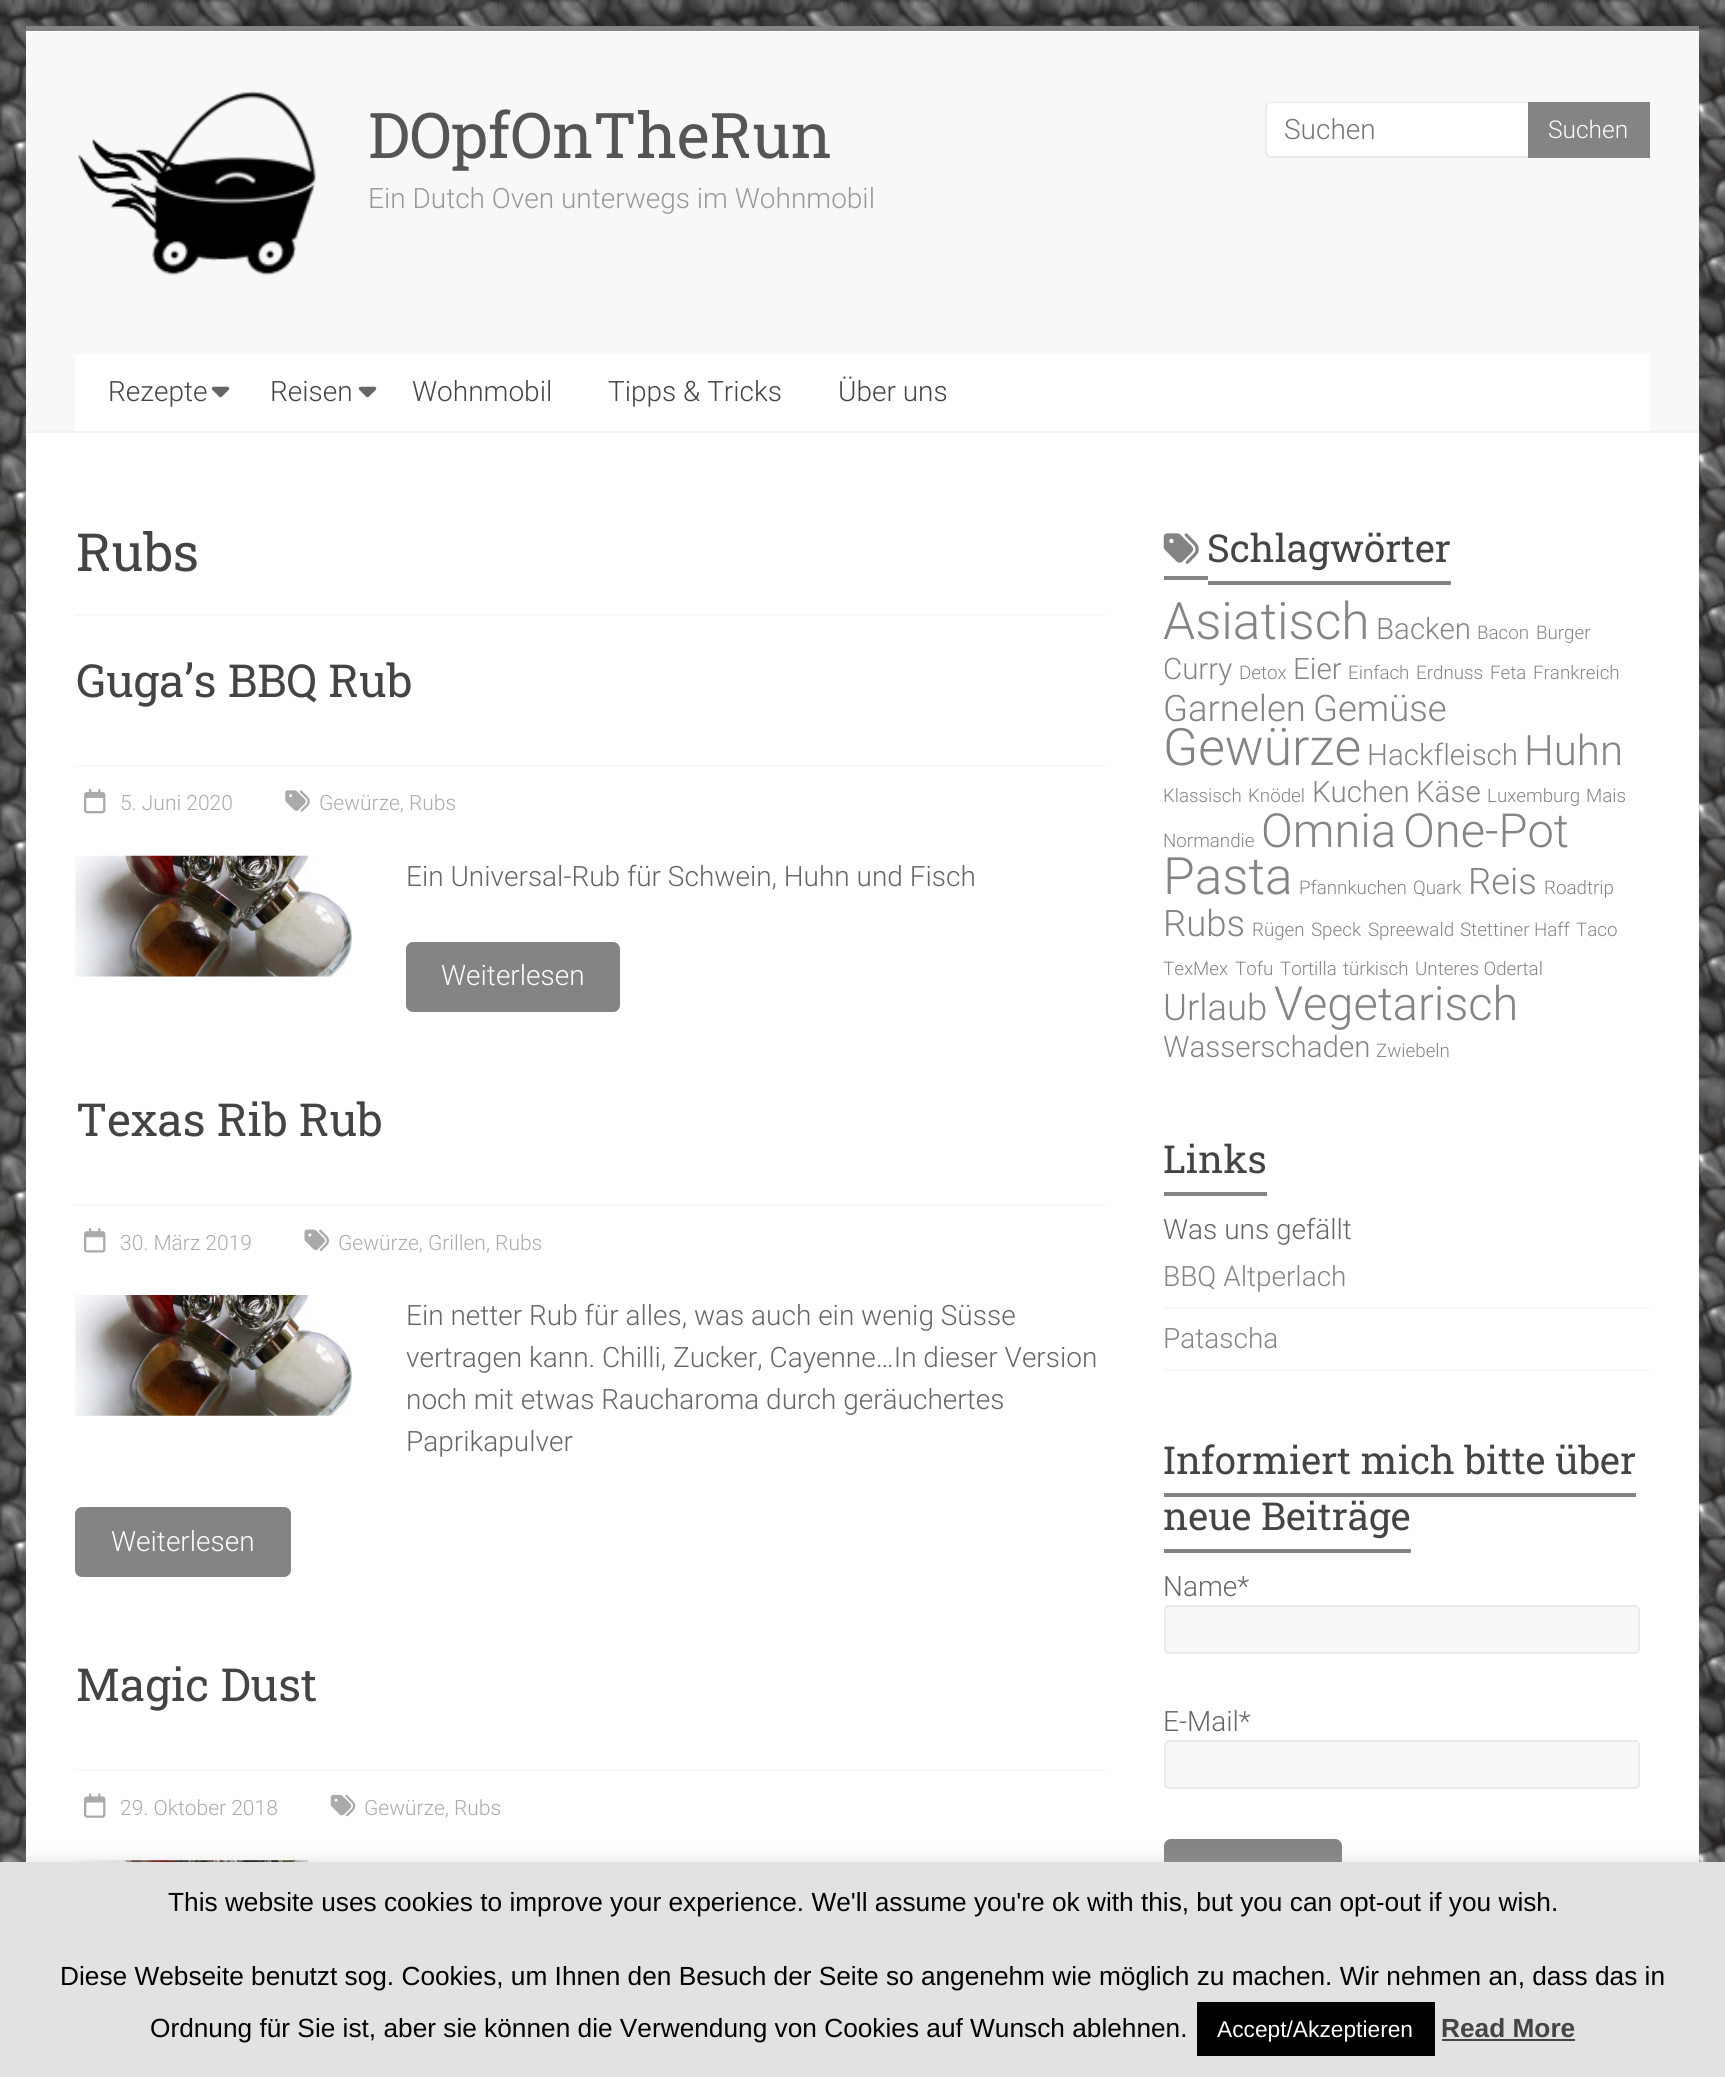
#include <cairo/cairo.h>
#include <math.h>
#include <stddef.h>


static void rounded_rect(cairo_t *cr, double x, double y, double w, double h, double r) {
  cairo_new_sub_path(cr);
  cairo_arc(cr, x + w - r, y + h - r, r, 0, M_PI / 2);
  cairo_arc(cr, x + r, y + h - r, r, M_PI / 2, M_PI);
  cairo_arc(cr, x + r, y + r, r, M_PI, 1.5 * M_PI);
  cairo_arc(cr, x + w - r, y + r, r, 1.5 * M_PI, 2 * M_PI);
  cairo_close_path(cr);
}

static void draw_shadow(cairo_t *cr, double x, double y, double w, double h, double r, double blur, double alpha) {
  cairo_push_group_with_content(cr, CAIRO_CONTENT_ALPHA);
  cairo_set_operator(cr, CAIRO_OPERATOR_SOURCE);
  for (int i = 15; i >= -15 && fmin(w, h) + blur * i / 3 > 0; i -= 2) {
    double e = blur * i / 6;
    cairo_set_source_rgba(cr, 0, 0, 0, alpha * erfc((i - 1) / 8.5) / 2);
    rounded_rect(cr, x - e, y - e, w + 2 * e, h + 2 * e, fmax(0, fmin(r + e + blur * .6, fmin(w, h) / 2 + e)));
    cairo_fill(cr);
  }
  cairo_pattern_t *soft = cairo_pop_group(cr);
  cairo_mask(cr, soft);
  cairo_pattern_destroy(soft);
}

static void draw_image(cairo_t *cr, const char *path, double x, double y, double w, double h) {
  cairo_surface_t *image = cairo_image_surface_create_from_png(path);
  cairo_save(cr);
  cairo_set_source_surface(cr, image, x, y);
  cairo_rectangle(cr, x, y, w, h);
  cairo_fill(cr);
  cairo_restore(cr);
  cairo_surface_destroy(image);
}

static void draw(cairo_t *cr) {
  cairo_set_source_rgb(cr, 1, 1, 1);
  cairo_paint(cr);
  draw_image(cr, "images/1.png", 0, 0, 1725, 1862);
  cairo_set_source_rgb(cr, 100 / 255.0, 100 / 255.0, 100 / 255.0);
  draw_shadow(cr, 26, 30, 1673, 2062, 0, 5, 0.3);
  cairo_set_source_rgb(cr, 1, 1, 1);
  cairo_rectangle(cr, 26, 31, 1673, 1831);
  cairo_fill(cr);
  cairo_set_source_rgb(cr, 132 / 255.0, 132 / 255.0, 132 / 255.0);
  cairo_rectangle(cr, 26, 26, 1673, 5);
  cairo_fill(cr);
  cairo_set_source_rgb(cr, 248 / 255.0, 248 / 255.0, 248 / 255.0);
  cairo_rectangle(cr, 26, 32, 1673, 399);
  cairo_fill(cr);
  cairo_set_source_rgb(cr, 242 / 255.0, 242 / 255.0, 242 / 255.0);
  cairo_rectangle(cr, 26, 431, 1673, 2);
  cairo_fill(cr);
  draw_image(cr, "images/2.png", 78, 91, 239, 185);
  cairo_set_source_rgb(cr, 1, 1, 1);
  cairo_new_path(cr);
  cairo_move_to(cr, 1270, 102);
  cairo_line_to(cr, 1528, 102);
  cairo_line_to(cr, 1528, 158);
  cairo_line_to(cr, 1270, 158);
  cairo_curve_to(cr, 1267, 158, 1265, 156, 1265, 153);
  cairo_line_to(cr, 1265, 107);
  cairo_curve_to(cr, 1265, 104, 1267, 102, 1270, 102);
  cairo_close_path(cr);
  cairo_fill(cr);
  cairo_set_source_rgb(cr, 234 / 255.0, 234 / 255.0, 234 / 255.0);
  cairo_set_fill_rule(cr, CAIRO_FILL_RULE_EVEN_ODD);
  cairo_new_path(cr);
  cairo_move_to(cr, 1270, 102);
  cairo_line_to(cr, 1528, 102);
  cairo_line_to(cr, 1528, 158);
  cairo_line_to(cr, 1270, 158);
  cairo_curve_to(cr, 1268, 158, 1265, 155, 1265, 152);
  cairo_line_to(cr, 1265, 107);
  cairo_curve_to(cr, 1265, 104, 1268, 102, 1270, 102);
  cairo_close_path(cr);
  cairo_move_to(cr, 1270, 103);
  cairo_line_to(cr, 1528, 103);
  cairo_line_to(cr, 1528, 156);
  cairo_line_to(cr, 1270, 156);
  cairo_curve_to(cr, 1269, 156, 1267, 154, 1267, 152);
  cairo_line_to(cr, 1267, 107);
  cairo_curve_to(cr, 1267, 105, 1269, 103, 1270, 103);
  cairo_close_path(cr);
  cairo_fill(cr);
  cairo_set_source_rgb(cr, 132 / 255.0, 132 / 255.0, 132 / 255.0);
  cairo_rectangle(cr, 1528, 102, 122, 56);
  cairo_fill(cr);
  cairo_set_source_rgb(cr, 1, 1, 1);
  cairo_rectangle(cr, 75, 354, 1575, 77);
  cairo_fill(cr);
  draw_image(cr, "images/3.png", 211, 386, 19, 12);
  draw_image(cr, "images/3.png", 358, 386, 19, 12);
  cairo_set_source_rgb(cr, 248 / 255.0, 248 / 255.0, 248 / 255.0);
  cairo_rectangle(cr, 75, 614, 1031, 2);
  cairo_fill(cr);
  cairo_rectangle(cr, 75, 765, 1031, 2);
  cairo_fill(cr);
  draw_image(cr, "images/4.png", 84, 788, 22, 26);
  draw_image(cr, "images/5.png", 285, 790, 25, 22);
  draw_image(cr, "images/6.png", 75, 855, 278, 122);
  cairo_set_source_rgb(cr, 132 / 255.0, 132 / 255.0, 132 / 255.0);
  rounded_rect(cr, 406, 942, 214, 70, 7);
  cairo_fill(cr);
  cairo_set_source_rgb(cr, 248 / 255.0, 248 / 255.0, 248 / 255.0);
  cairo_rectangle(cr, 75, 1204, 1031, 2);
  cairo_fill(cr);
  draw_image(cr, "images/7.png", 84, 1228, 22, 25);
  draw_image(cr, "images/8.png", 304, 1229, 25, 22);
  draw_image(cr, "images/9.png", 75, 1295, 278, 121);
  cairo_set_source_rgb(cr, 132 / 255.0, 132 / 255.0, 132 / 255.0);
  rounded_rect(cr, 75, 1507, 216, 70, 7);
  cairo_fill(cr);
  cairo_set_source_rgb(cr, 248 / 255.0, 248 / 255.0, 248 / 255.0);
  cairo_rectangle(cr, 75, 1769, 1031, 2);
  cairo_fill(cr);
  draw_image(cr, "images/10.png", 84, 1793, 22, 25);
  draw_image(cr, "images/11.png", 330, 1794, 26, 23);
  draw_image(cr, "images/12.png", 75, 1860, 278, 2);
  draw_image(cr, "images/13.png", 1163, 533, 36, 31);
  cairo_set_source_rgb(cr, 132 / 255.0, 132 / 255.0, 132 / 255.0);
  cairo_rectangle(cr, 1164, 576, 44, 4);
  cairo_fill(cr);
  cairo_rectangle(cr, 1208, 581, 243, 4);
  cairo_fill(cr);
  cairo_rectangle(cr, 1164, 1192, 103, 4);
  cairo_fill(cr);
  cairo_set_source_rgb(cr, 248 / 255.0, 248 / 255.0, 248 / 255.0);
  cairo_rectangle(cr, 1164, 1307, 486, 2);
  cairo_fill(cr);
  cairo_rectangle(cr, 1164, 1369, 486, 2);
  cairo_fill(cr);
  cairo_set_source_rgb(cr, 132 / 255.0, 132 / 255.0, 132 / 255.0);
  cairo_rectangle(cr, 1164, 1493, 472, 4);
  cairo_fill(cr);
  cairo_rectangle(cr, 1164, 1549, 247, 4);
  cairo_fill(cr);
  cairo_set_source_rgb(cr, 248 / 255.0, 248 / 255.0, 248 / 255.0);
  rounded_rect(cr, 1165, 1606, 474, 47, 4);
  cairo_fill_preserve(cr);
  cairo_set_source_rgb(cr, 234 / 255.0, 234 / 255.0, 234 / 255.0);
  cairo_stroke(cr);
  cairo_set_source_rgb(cr, 248 / 255.0, 248 / 255.0, 248 / 255.0);
  rounded_rect(cr, 1165, 1741, 474, 47, 4);
  cairo_fill_preserve(cr);
  cairo_set_source_rgb(cr, 234 / 255.0, 234 / 255.0, 234 / 255.0);
  cairo_stroke(cr);
  cairo_set_source_rgb(cr, 132 / 255.0, 132 / 255.0, 132 / 255.0);
  rounded_rect(cr, 1164, 1839, 178, 70, 7);
  cairo_fill(cr);
  cairo_set_source_rgb(cr, 172 / 255.0, 171 / 255.0, 171 / 255.0);
  draw_shadow(cr, 0, 1860, 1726, 216, 0, 9, 0.3);
  cairo_set_source_rgb(cr, 226 / 255.0, 226 / 255.0, 226 / 255.0);
  cairo_rectangle(cr, 0, 1862, 1725, 215);
  cairo_fill(cr);
  cairo_set_source_rgb(cr, 0, 0, 0);
  cairo_rectangle(cr, 1197, 2002, 238, 54);
  cairo_fill(cr);
  cairo_set_source_rgb(cr, 68 / 255.0, 68 / 255.0, 68 / 255.0);
  cairo_rectangle(cr, 1442, 2039, 133, 2);
  cairo_fill(cr);
  cairo_select_font_face(cr, "Roboto Slab", CAIRO_FONT_SLANT_NORMAL, CAIRO_FONT_WEIGHT_NORMAL);
  cairo_set_font_size(cr, 63);
  cairo_set_source_rgb(cr, 85 / 255.0, 85 / 255.0, 85 / 255.0);
  cairo_move_to(cr, 368, 158);
  cairo_show_text(cr, "DOpfOnTheRun");
  cairo_select_font_face(cr, "Roboto Light", CAIRO_FONT_SLANT_NORMAL, CAIRO_FONT_WEIGHT_NORMAL);
  cairo_set_font_size(cr, 28);
  cairo_set_source_rgb(cr, 153 / 255.0, 153 / 255.0, 153 / 255.0);
  cairo_move_to(cr, 368, 208);
  cairo_show_text(cr, "Ein Dutch Oven unterwegs im Wohnmobil");
  cairo_set_source_rgb(cr, 117 / 255.0, 117 / 255.0, 117 / 255.0);
  cairo_move_to(cr, 1284, 139);
  cairo_show_text(cr, "Suchen");
  cairo_set_font_size(cr, 24.5);
  cairo_set_source_rgb(cr, 1, 1, 1);
  cairo_move_to(cr, 1548, 138);
  cairo_show_text(cr, "Suchen");
  cairo_set_font_size(cr, 28);
  cairo_set_source_rgb(cr, 68 / 255.0, 68 / 255.0, 68 / 255.0);
  cairo_move_to(cr, 108, 401);
  cairo_show_text(cr, "Rezepte");
  cairo_move_to(cr, 270, 401);
  cairo_show_text(cr, "Reisen");
  cairo_move_to(cr, 412, 401);
  cairo_show_text(cr, "Wohnmobil");
  cairo_move_to(cr, 608, 401);
  cairo_show_text(cr, "Tipps & Tricks");
  cairo_move_to(cr, 838, 401);
  cairo_show_text(cr, "Über uns");
  cairo_select_font_face(cr, "Roboto Slab", CAIRO_FONT_SLANT_NORMAL, CAIRO_FONT_WEIGHT_NORMAL);
  cairo_set_font_size(cr, 52.5);
  cairo_move_to(cr, 76, 571);
  cairo_show_text(cr, "Rubs");
  cairo_set_font_size(cr, 45.5);
  cairo_move_to(cr, 76, 697);
  cairo_show_text(cr, "Guga’s BBQ Rub");
  cairo_select_font_face(cr, "Roboto Light", CAIRO_FONT_SLANT_NORMAL, CAIRO_FONT_WEIGHT_NORMAL);
  cairo_set_font_size(cr, 21);
  cairo_set_source_rgb(cr, 170 / 255.0, 170 / 255.0, 170 / 255.0);
  cairo_move_to(cr, 120, 810);
  cairo_show_text(cr, "5. Juni 2020");
  cairo_move_to(cr, 319, 810);
  cairo_show_text(cr, "Gewürze, Rubs");
  cairo_set_font_size(cr, 28);
  cairo_set_source_rgb(cr, 102 / 255.0, 102 / 255.0, 102 / 255.0);
  cairo_move_to(cr, 406, 886);
  cairo_show_text(cr, "Ein Universal-Rub für Schwein, Huhn und Fisch");
  cairo_set_source_rgb(cr, 1, 1, 1);
  cairo_move_to(cr, 441, 985);
  cairo_show_text(cr, "Weiterlesen");
  cairo_select_font_face(cr, "Roboto Slab", CAIRO_FONT_SLANT_NORMAL, CAIRO_FONT_WEIGHT_NORMAL);
  cairo_set_font_size(cr, 45.5);
  cairo_set_source_rgb(cr, 68 / 255.0, 68 / 255.0, 68 / 255.0);
  cairo_move_to(cr, 76, 1136);
  cairo_show_text(cr, "Texas Rib Rub");
  cairo_select_font_face(cr, "Roboto Light", CAIRO_FONT_SLANT_NORMAL, CAIRO_FONT_WEIGHT_NORMAL);
  cairo_set_font_size(cr, 21);
  cairo_set_source_rgb(cr, 170 / 255.0, 170 / 255.0, 170 / 255.0);
  cairo_move_to(cr, 120, 1250);
  cairo_show_text(cr, "30. März 2019");
  cairo_move_to(cr, 338, 1250);
  cairo_show_text(cr, "Gewürze, Grillen, Rubs");
  cairo_set_font_size(cr, 28);
  cairo_set_source_rgb(cr, 102 / 255.0, 102 / 255.0, 102 / 255.0);
  cairo_move_to(cr, 406, 1325);
  cairo_show_text(cr, "Ein netter Rub für alles, was auch ein wenig Süsse");
  cairo_move_to(cr, 406, 1367);
  cairo_show_text(cr, "vertragen kann. Chilli, Zucker, Cayenne…In dieser Version");
  cairo_move_to(cr, 406, 1409);
  cairo_show_text(cr, "noch mit etwas Raucharoma durch geräuchertes");
  cairo_move_to(cr, 406, 1451);
  cairo_show_text(cr, "Paprikapulver");
  cairo_set_source_rgb(cr, 1, 1, 1);
  cairo_move_to(cr, 111, 1551);
  cairo_show_text(cr, "Weiterlesen");
  cairo_select_font_face(cr, "Roboto Slab", CAIRO_FONT_SLANT_NORMAL, CAIRO_FONT_WEIGHT_NORMAL);
  cairo_set_font_size(cr, 45.5);
  cairo_set_source_rgb(cr, 68 / 255.0, 68 / 255.0, 68 / 255.0);
  cairo_move_to(cr, 76, 1701);
  cairo_show_text(cr, "Magic Dust");
  cairo_select_font_face(cr, "Roboto Light", CAIRO_FONT_SLANT_NORMAL, CAIRO_FONT_WEIGHT_NORMAL);
  cairo_set_font_size(cr, 21);
  cairo_set_source_rgb(cr, 170 / 255.0, 170 / 255.0, 170 / 255.0);
  cairo_move_to(cr, 120, 1815);
  cairo_show_text(cr, "29. Oktober 2018");
  cairo_move_to(cr, 364, 1815);
  cairo_show_text(cr, "Gewürze, Rubs");
  cairo_select_font_face(cr, "Roboto Slab", CAIRO_FONT_SLANT_NORMAL, CAIRO_FONT_WEIGHT_NORMAL);
  cairo_set_font_size(cr, 38.5);
  cairo_set_source_rgb(cr, 68 / 255.0, 68 / 255.0, 68 / 255.0);
  cairo_move_to(cr, 1207, 562);
  cairo_show_text(cr, "Schlagwörter");
  cairo_select_font_face(cr, "Roboto Light", CAIRO_FONT_SLANT_NORMAL, CAIRO_FONT_WEIGHT_NORMAL);
  cairo_set_font_size(cr, 51.5);
  cairo_set_source_rgb(cr, 132 / 255.0, 132 / 255.0, 132 / 255.0);
  cairo_move_to(cr, 1163, 639);
  cairo_show_text(cr, "Asiatisch");
  cairo_set_font_size(cr, 29.5);
  cairo_move_to(cr, 1376, 639);
  cairo_show_text(cr, "Backen");
  cairo_set_font_size(cr, 18.75);
  cairo_move_to(cr, 1477, 639);
  cairo_show_text(cr, "Bacon");
  cairo_move_to(cr, 1536, 639);
  cairo_show_text(cr, "Burger");
  cairo_set_font_size(cr, 29.5);
  cairo_move_to(cr, 1163, 679);
  cairo_show_text(cr, "Curry");
  cairo_set_font_size(cr, 18.75);
  cairo_move_to(cr, 1239, 679);
  cairo_show_text(cr, "Detox");
  cairo_set_font_size(cr, 29.5);
  cairo_move_to(cr, 1293, 679);
  cairo_show_text(cr, "Eier");
  cairo_set_font_size(cr, 18.75);
  cairo_move_to(cr, 1348, 679);
  cairo_show_text(cr, "Einfach");
  cairo_move_to(cr, 1416, 679);
  cairo_show_text(cr, "Erdnuss");
  cairo_move_to(cr, 1490, 679);
  cairo_show_text(cr, "Feta");
  cairo_move_to(cr, 1533, 679);
  cairo_show_text(cr, "Frankreich");
  cairo_set_font_size(cr, 36.5);
  cairo_move_to(cr, 1163, 721);
  cairo_show_text(cr, "Garnelen");
  cairo_move_to(cr, 1313, 721);
  cairo_show_text(cr, "Gemüse");
  cairo_set_font_size(cr, 51.5);
  cairo_move_to(cr, 1163, 765);
  cairo_show_text(cr, "Gewürze");
  cairo_set_font_size(cr, 29.5);
  cairo_move_to(cr, 1367, 765);
  cairo_show_text(cr, "Hackfleisch");
  cairo_set_font_size(cr, 42);
  cairo_move_to(cr, 1524, 765);
  cairo_show_text(cr, "Huhn");
  cairo_set_font_size(cr, 18.75);
  cairo_move_to(cr, 1163, 802);
  cairo_show_text(cr, "Klassisch");
  cairo_move_to(cr, 1248, 802);
  cairo_show_text(cr, "Knödel");
  cairo_set_font_size(cr, 29.5);
  cairo_move_to(cr, 1312, 802);
  cairo_show_text(cr, "Kuchen");
  cairo_move_to(cr, 1416, 802);
  cairo_show_text(cr, "Käse");
  cairo_set_font_size(cr, 18.75);
  cairo_move_to(cr, 1487, 802);
  cairo_show_text(cr, "Luxemburg");
  cairo_move_to(cr, 1586, 802);
  cairo_show_text(cr, "Mais");
  cairo_move_to(cr, 1163, 847);
  cairo_show_text(cr, "Normandie");
  cairo_set_font_size(cr, 47);
  cairo_move_to(cr, 1261, 847);
  cairo_show_text(cr, "Omnia");
  cairo_move_to(cr, 1403, 847);
  cairo_show_text(cr, "One-Pot");
  cairo_set_font_size(cr, 51.5);
  cairo_move_to(cr, 1163, 894);
  cairo_show_text(cr, "Pasta");
  cairo_set_font_size(cr, 18.75);
  cairo_move_to(cr, 1299, 894);
  cairo_show_text(cr, "Pfannkuchen");
  cairo_move_to(cr, 1413, 894);
  cairo_show_text(cr, "Quark");
  cairo_set_font_size(cr, 36.5);
  cairo_move_to(cr, 1468, 894);
  cairo_show_text(cr, "Reis");
  cairo_set_font_size(cr, 18.75);
  cairo_move_to(cr, 1544, 894);
  cairo_show_text(cr, "Roadtrip");
  cairo_set_font_size(cr, 36.5);
  cairo_move_to(cr, 1163, 936);
  cairo_show_text(cr, "Rubs");
  cairo_set_font_size(cr, 18.75);
  cairo_move_to(cr, 1252, 936);
  cairo_show_text(cr, "Rügen");
  cairo_move_to(cr, 1311, 936);
  cairo_show_text(cr, "Speck");
  cairo_move_to(cr, 1368, 936);
  cairo_show_text(cr, "Spreewald");
  cairo_move_to(cr, 1460, 936);
  cairo_show_text(cr, "Stettiner Haff");
  cairo_move_to(cr, 1576, 936);
  cairo_show_text(cr, "Taco");
  cairo_move_to(cr, 1163, 975);
  cairo_show_text(cr, "TexMex");
  cairo_move_to(cr, 1235, 975);
  cairo_show_text(cr, "Tofu");
  cairo_move_to(cr, 1280, 975);
  cairo_show_text(cr, "Tortilla");
  cairo_move_to(cr, 1343, 975);
  cairo_show_text(cr, "türkisch");
  cairo_move_to(cr, 1415, 975);
  cairo_show_text(cr, "Unteres Odertal");
  cairo_set_font_size(cr, 36.5);
  cairo_move_to(cr, 1163, 1020);
  cairo_show_text(cr, "Urlaub");
  cairo_set_font_size(cr, 47);
  cairo_move_to(cr, 1274, 1020);
  cairo_show_text(cr, "Vegetarisch");
  cairo_set_font_size(cr, 29.5);
  cairo_move_to(cr, 1163, 1057);
  cairo_show_text(cr, "Wasserschaden");
  cairo_set_font_size(cr, 18.75);
  cairo_move_to(cr, 1376, 1057);
  cairo_show_text(cr, "Zwiebeln");
  cairo_select_font_face(cr, "Roboto Slab", CAIRO_FONT_SLANT_NORMAL, CAIRO_FONT_WEIGHT_NORMAL);
  cairo_set_font_size(cr, 38.5);
  cairo_set_source_rgb(cr, 68 / 255.0, 68 / 255.0, 68 / 255.0);
  cairo_move_to(cr, 1163, 1173);
  cairo_show_text(cr, "Links");
  cairo_select_font_face(cr, "Roboto Light", CAIRO_FONT_SLANT_NORMAL, CAIRO_FONT_WEIGHT_NORMAL);
  cairo_set_font_size(cr, 28);
  cairo_set_source_rgb(cr, 102 / 255.0, 102 / 255.0, 102 / 255.0);
  cairo_move_to(cr, 1163, 1239);
  cairo_show_text(cr, "Was uns gefällt");
  cairo_set_source_rgb(cr, 132 / 255.0, 132 / 255.0, 132 / 255.0);
  cairo_move_to(cr, 1163, 1286);
  cairo_show_text(cr, "BBQ Altperlach");
  cairo_move_to(cr, 1163, 1348);
  cairo_show_text(cr, "Patascha");
  cairo_select_font_face(cr, "Roboto Slab", CAIRO_FONT_SLANT_NORMAL, CAIRO_FONT_WEIGHT_NORMAL);
  cairo_set_font_size(cr, 38.5);
  cairo_set_source_rgb(cr, 68 / 255.0, 68 / 255.0, 68 / 255.0);
  cairo_move_to(cr, 1163, 1474);
  cairo_show_text(cr, "Informiert mich bitte über");
  cairo_move_to(cr, 1163, 1530);
  cairo_show_text(cr, "neue Beiträge");
  cairo_select_font_face(cr, "Roboto Light", CAIRO_FONT_SLANT_NORMAL, CAIRO_FONT_WEIGHT_NORMAL);
  cairo_set_font_size(cr, 28);
  cairo_set_source_rgb(cr, 102 / 255.0, 102 / 255.0, 102 / 255.0);
  cairo_move_to(cr, 1163, 1596);
  cairo_show_text(cr, "Name*");
  cairo_move_to(cr, 1163, 1731);
  cairo_show_text(cr, "E-Mail*");
  cairo_select_font_face(cr, "Liberation Sans", CAIRO_FONT_SLANT_NORMAL, CAIRO_FONT_WEIGHT_NORMAL);
  cairo_set_font_size(cr, 26.25);
  cairo_set_source_rgb(cr, 0, 0, 0);
  cairo_move_to(cr, 168, 1911);
  cairo_show_text(cr, "This website uses cookies to improve your experience. We'll assume you're ok with this, but you can opt-out if you wish.");
  cairo_move_to(cr, 60, 1985);
  cairo_show_text(cr, "Diese Webseite benutzt sog. Cookies, um Ihnen den Besuch der Seite so angenehm wie möglich zu machen. Wir nehmen an, dass das in");
  cairo_move_to(cr, 150, 2037);
  cairo_show_text(cr, "Ordnung für Sie ist, aber sie können die Verwendung von Cookies auf Wunsch ablehnen.");
  cairo_set_font_size(cr, 22.75);
  cairo_set_source_rgb(cr, 1, 1, 1);
  cairo_move_to(cr, 1217, 2037);
  cairo_show_text(cr, "Accept/Akzeptieren");
  cairo_select_font_face(cr, "Liberation Sans", CAIRO_FONT_SLANT_NORMAL, CAIRO_FONT_WEIGHT_BOLD);
  cairo_set_font_size(cr, 26.25);
  cairo_set_source_rgb(cr, 68 / 255.0, 68 / 255.0, 68 / 255.0);
  cairo_move_to(cr, 1441, 2037);
  cairo_show_text(cr, "Read More");
}

int main(void) {
  cairo_surface_t *surface = cairo_image_surface_create(CAIRO_FORMAT_RGB24, 1725, 2077);
  cairo_t *cr = cairo_create(surface);
  cairo_font_options_t *options = cairo_font_options_create();
  cairo_font_options_set_hint_metrics(options, CAIRO_HINT_METRICS_OFF);
  cairo_font_options_set_hint_style(options, CAIRO_HINT_STYLE_NONE);
  cairo_set_font_options(cr, options);
  cairo_set_miter_limit(cr, 4);
  draw(cr);
  cairo_surface_write_to_png(surface, "out.png");
  cairo_font_options_destroy(options);
  cairo_destroy(cr);
  cairo_surface_destroy(surface);
  return 0;
}
